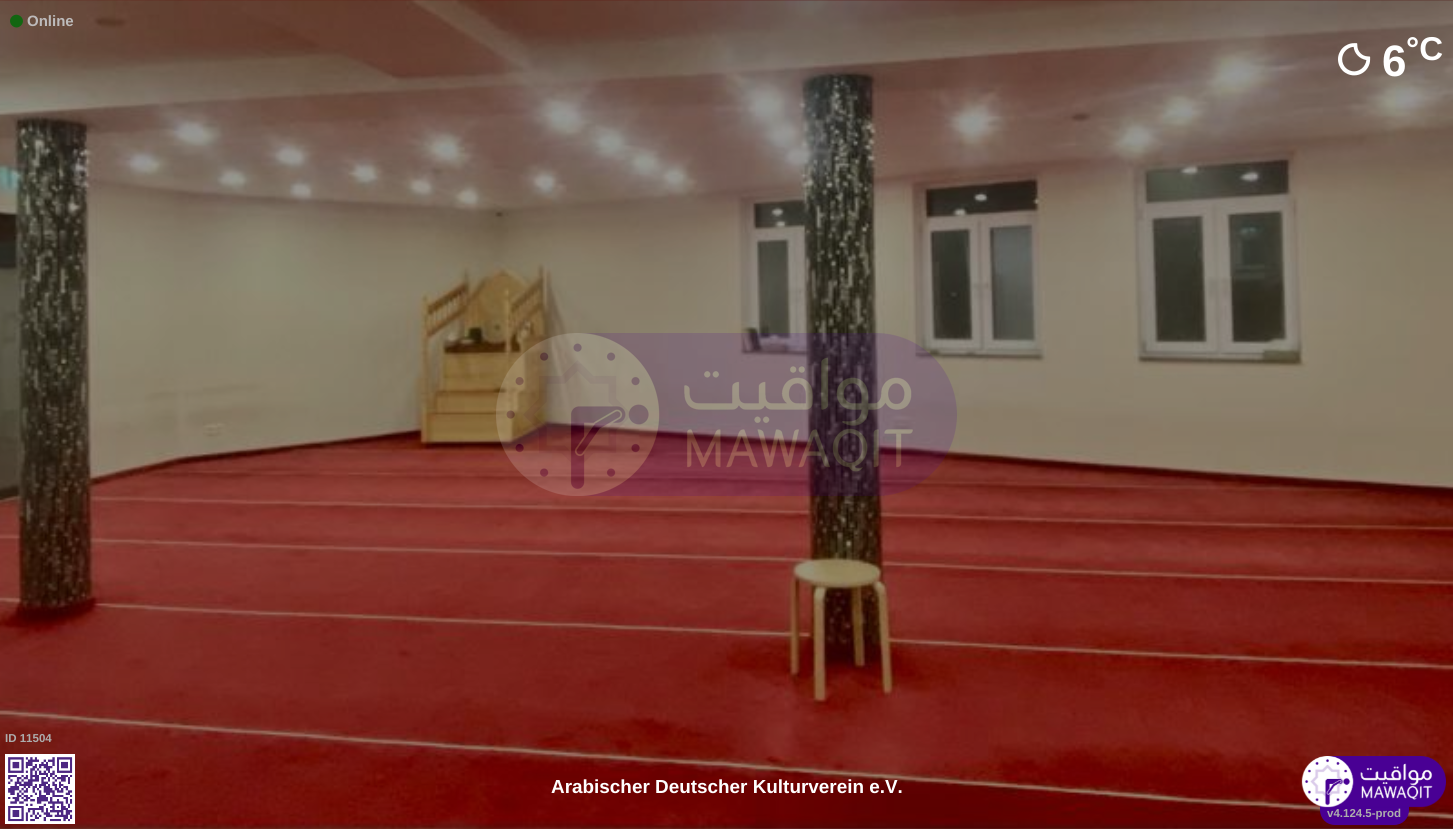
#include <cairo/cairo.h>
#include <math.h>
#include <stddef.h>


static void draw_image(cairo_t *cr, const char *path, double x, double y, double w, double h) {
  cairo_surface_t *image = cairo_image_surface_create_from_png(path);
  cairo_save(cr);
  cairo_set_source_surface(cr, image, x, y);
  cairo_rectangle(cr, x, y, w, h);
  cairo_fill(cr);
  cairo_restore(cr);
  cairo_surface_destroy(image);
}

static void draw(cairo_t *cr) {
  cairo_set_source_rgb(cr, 1, 1, 1);
  cairo_paint(cr);
  draw_image(cr, "images/1.png", 0, 0, 1453, 829);
  cairo_set_source_rgb(cr, 18 / 255.0, 102 / 255.0, 17 / 255.0);
  cairo_new_path(cr);
  cairo_move_to(cr, 12, 16.5);
  cairo_curve_to(cr, 18, 11, 27, 19.5, 21, 25.5);
  cairo_curve_to(cr, 15, 31.5, 6, 22.5, 12, 16.5);
  cairo_close_path(cr);
  cairo_fill(cr);
  draw_image(cr, "images/2.png", 1338, 43, 33, 33);
  draw_image(cr, "images/3.png", 5, 754, 70, 70);
  cairo_set_source_rgb(cr, 73 / 255.0, 0, 148 / 255.0);
  cairo_new_path(cr);
  cairo_move_to(cr, 1320, 802);
  cairo_line_to(cr, 1409, 802);
  cairo_line_to(cr, 1409, 810);
  cairo_curve_to(cr, 1409, 818.5, 1402.5, 825, 1394, 825);
  cairo_line_to(cr, 1335, 825);
  cairo_curve_to(cr, 1326.5, 825, 1320, 818.5, 1320, 810);
  cairo_close_path(cr);
  cairo_fill(cr);
  draw_image(cr, "images/4.png", 1301, 756, 145, 52);
  draw_image(cr, "images/5.png", 496, 333, 461, 163);
  cairo_select_font_face(cr, "Liberation Sans", CAIRO_FONT_SLANT_NORMAL, CAIRO_FONT_WEIGHT_BOLD);
  cairo_set_font_size(cr, 15);
  cairo_set_source_rgb(cr, 189 / 255.0, 187 / 255.0, 187 / 255.0);
  cairo_move_to(cr, 27, 26);
  cairo_show_text(cr, "Online");
  cairo_set_font_size(cr, 44);
  cairo_set_source_rgb(cr, 1, 1, 1);
  cairo_move_to(cr, 1382, 76);
  cairo_show_text(cr, "6");
  cairo_set_font_size(cr, 33);
  cairo_move_to(cr, 1406, 60);
  cairo_show_text(cr, "°C");
  cairo_set_font_size(cr, 11.5);
  cairo_set_source_rgb(cr, 173 / 255.0, 173 / 255.0, 173 / 255.0);
  cairo_move_to(cr, 5, 742);
  cairo_show_text(cr, "ID 11504");
  cairo_set_font_size(cr, 18.9);
  cairo_set_source_rgb(cr, 1, 1, 1);
  cairo_move_to(cr, 551, 793);
  cairo_show_text(cr, "Arabischer Deutscher Kulturverein e.V.");
  cairo_set_font_size(cr, 11.5);
  cairo_set_source_rgb(cr, 173 / 255.0, 173 / 255.0, 173 / 255.0);
  cairo_move_to(cr, 1327, 817);
  cairo_show_text(cr, "v4.124.5-prod");
}

int main(void) {
  cairo_surface_t *surface = cairo_image_surface_create(CAIRO_FORMAT_RGB24, 1453, 829);
  cairo_t *cr = cairo_create(surface);
  cairo_font_options_t *options = cairo_font_options_create();
  cairo_font_options_set_hint_metrics(options, CAIRO_HINT_METRICS_OFF);
  cairo_font_options_set_hint_style(options, CAIRO_HINT_STYLE_NONE);
  cairo_set_font_options(cr, options);
  cairo_set_miter_limit(cr, 4);
  draw(cr);
  cairo_surface_write_to_png(surface, "out.png");
  cairo_font_options_destroy(options);
  cairo_destroy(cr);
  cairo_surface_destroy(surface);
  return 0;
}
